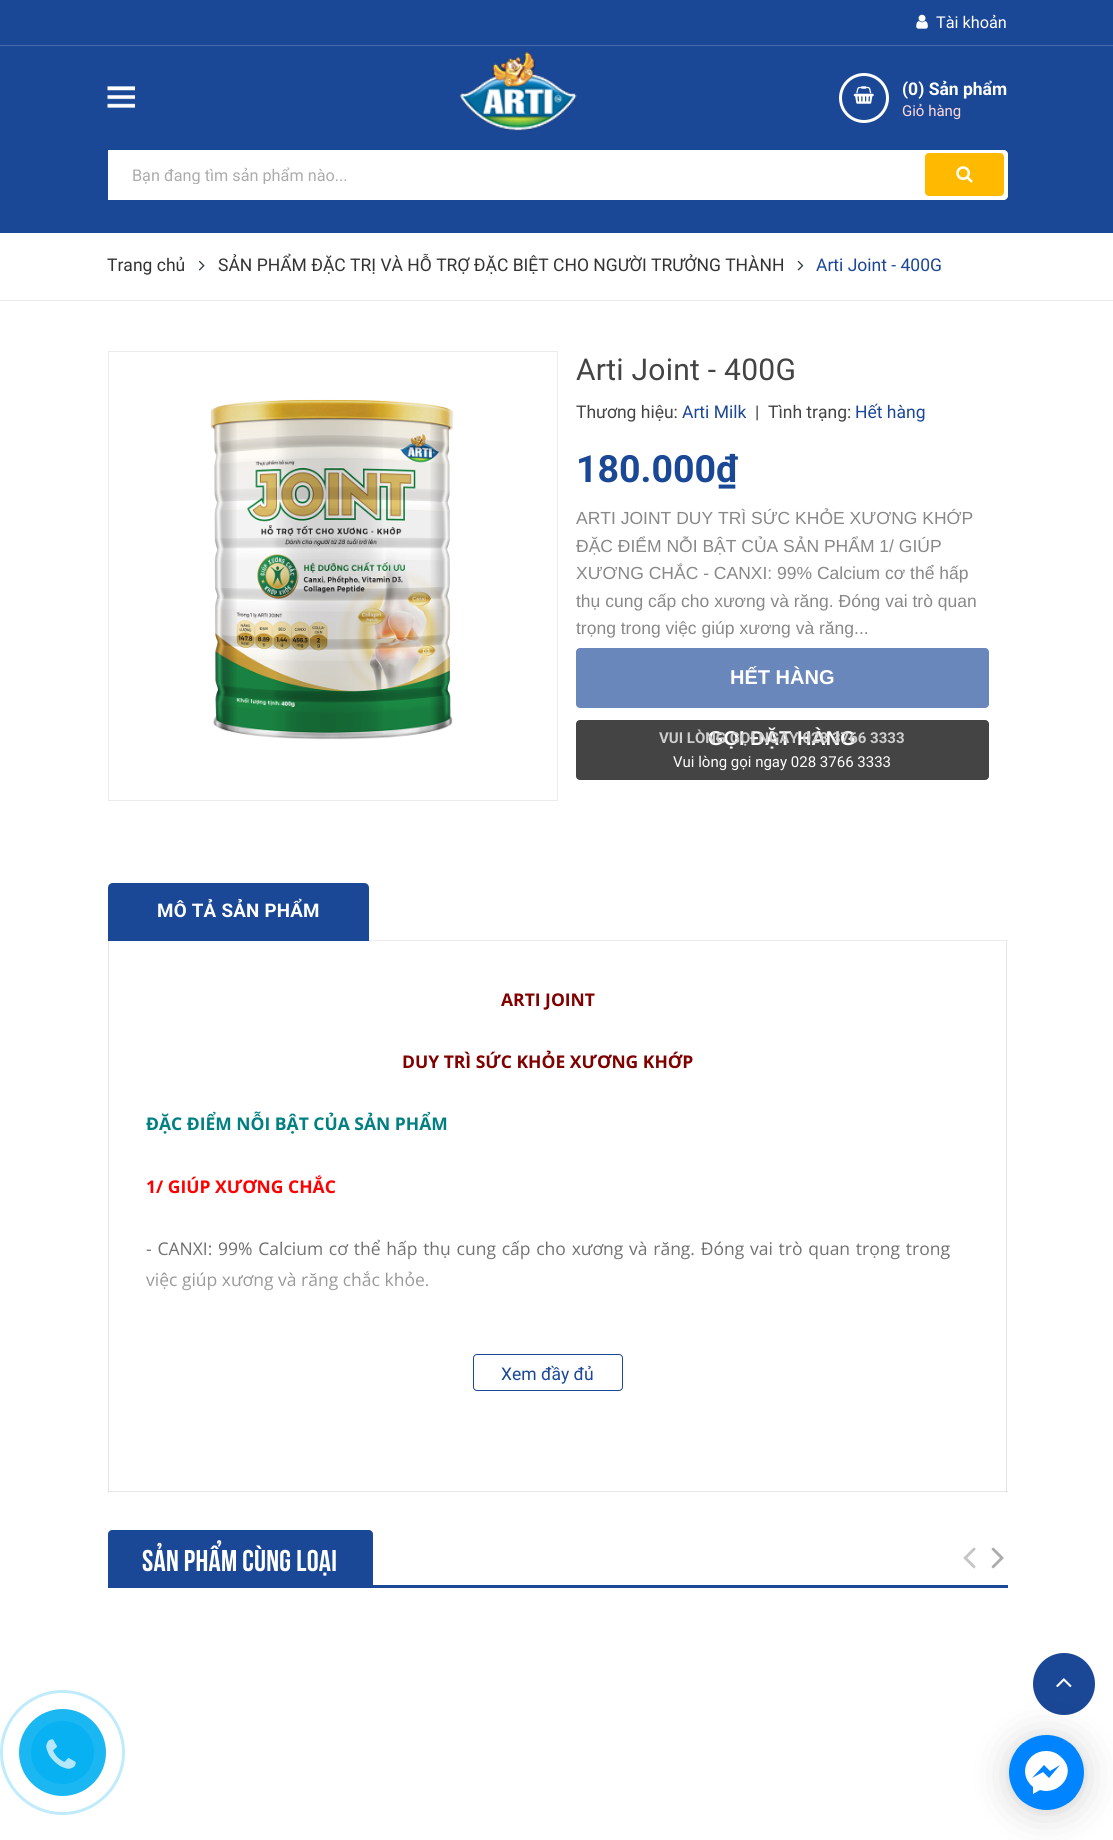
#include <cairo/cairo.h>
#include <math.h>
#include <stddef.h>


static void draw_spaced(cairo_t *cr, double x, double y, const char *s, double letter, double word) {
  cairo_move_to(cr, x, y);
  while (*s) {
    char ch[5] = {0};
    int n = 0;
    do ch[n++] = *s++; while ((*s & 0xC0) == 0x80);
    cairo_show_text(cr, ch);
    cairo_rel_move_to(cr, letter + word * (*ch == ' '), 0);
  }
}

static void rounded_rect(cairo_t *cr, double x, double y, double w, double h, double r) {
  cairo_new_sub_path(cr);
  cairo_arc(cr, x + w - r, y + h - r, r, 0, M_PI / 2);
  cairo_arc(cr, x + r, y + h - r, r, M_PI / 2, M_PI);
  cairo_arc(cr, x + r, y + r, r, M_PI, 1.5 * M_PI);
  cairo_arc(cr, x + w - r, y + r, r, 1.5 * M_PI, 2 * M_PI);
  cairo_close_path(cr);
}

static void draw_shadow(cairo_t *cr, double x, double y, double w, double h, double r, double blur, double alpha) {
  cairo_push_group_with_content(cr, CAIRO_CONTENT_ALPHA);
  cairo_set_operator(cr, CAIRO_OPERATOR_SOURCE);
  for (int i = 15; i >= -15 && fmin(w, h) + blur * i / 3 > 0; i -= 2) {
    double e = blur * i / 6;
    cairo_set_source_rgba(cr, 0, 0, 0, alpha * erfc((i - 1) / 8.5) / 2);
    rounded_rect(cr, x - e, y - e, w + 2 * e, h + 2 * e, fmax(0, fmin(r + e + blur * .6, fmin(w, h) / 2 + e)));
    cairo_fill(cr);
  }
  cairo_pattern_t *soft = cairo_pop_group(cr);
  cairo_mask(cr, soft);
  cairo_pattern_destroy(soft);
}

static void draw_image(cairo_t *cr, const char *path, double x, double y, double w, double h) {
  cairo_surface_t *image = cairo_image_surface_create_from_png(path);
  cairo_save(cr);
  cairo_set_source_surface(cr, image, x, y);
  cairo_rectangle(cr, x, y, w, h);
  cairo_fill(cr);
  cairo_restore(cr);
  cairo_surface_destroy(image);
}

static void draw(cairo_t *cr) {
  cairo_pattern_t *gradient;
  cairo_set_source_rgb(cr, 1, 1, 1);
  cairo_paint(cr);
  cairo_set_source_rgb(cr, 26 / 255.0, 71 / 255.0, 150 / 255.0);
  cairo_rectangle(cr, 0, 0, 1113, 45);
  cairo_fill(cr);
  cairo_set_source_rgb(cr, 72 / 255.0, 108 / 255.0, 171 / 255.0);
  cairo_rectangle(cr, 0, 45, 1113, 1);
  cairo_fill(cr);
  draw_image(cr, "images/1.png", 916, 14, 12, 15);
  cairo_set_source_rgb(cr, 26 / 255.0, 71 / 255.0, 150 / 255.0);
  cairo_rectangle(cr, 0, 46, 1113, 187);
  cairo_fill(cr);
  draw_image(cr, "images/2.png", 107, 86, 28, 22);
  draw_image(cr, "images/3.png", 459, 51, 118, 81);
  cairo_arc(cr, 864, 98, 23.5, 0, 2 * M_PI);
  cairo_set_source_rgb(cr, 1, 1, 1);
  cairo_set_line_width(cr, 3);
  cairo_stroke(cr);
  draw_image(cr, "images/4.png", 853, 86, 21, 18);
  cairo_new_path(cr);
  cairo_move_to(cr, 108, 150);
  cairo_line_to(cr, 1004, 150);
  cairo_curve_to(cr, 1006, 150, 1008, 152, 1008, 154);
  cairo_line_to(cr, 1008, 196);
  cairo_curve_to(cr, 1008, 198, 1006, 200, 1004, 200);
  cairo_line_to(cr, 108, 200);
  cairo_close_path(cr);
  cairo_fill(cr);
  cairo_set_source_rgb(cr, 1, 186 / 255.0, 0);
  rounded_rect(cr, 925, 153, 79, 43, 4);
  cairo_fill(cr);
  draw_image(cr, "images/5.png", 956, 166, 17, 17);
  cairo_set_source_rgb(cr, 235 / 255.0, 235 / 255.0, 235 / 255.0);
  cairo_rectangle(cr, 0, 300, 1113, 1);
  cairo_fill(cr);
  draw_image(cr, "images/6.png", 198, 260, 7, 11);
  draw_image(cr, "images/7.png", 797, 260, 7, 11);
  cairo_rectangle(cr, 108.5, 351.5, 449, 449);
  cairo_set_line_width(cr, 1);
  cairo_stroke(cr);
  draw_image(cr, "images/8.png", 210, 399, 244, 341);
  cairo_set_source_rgb(cr, 106 / 255.0, 135 / 255.0, 187 / 255.0);
  rounded_rect(cr, 576, 648, 413, 60, 4);
  cairo_fill(cr);
  cairo_set_source_rgb(cr, 68 / 255.0, 68 / 255.0, 68 / 255.0);
  rounded_rect(cr, 576, 720, 413, 60, 4);
  cairo_fill(cr);
  cairo_set_source_rgb(cr, 235 / 255.0, 235 / 255.0, 235 / 255.0);
  cairo_rectangle(cr, 369, 940, 639, 1);
  cairo_fill(cr);
  cairo_set_source_rgb(cr, 26 / 255.0, 71 / 255.0, 150 / 255.0);
  cairo_new_path(cr);
  cairo_move_to(cr, 113, 883);
  cairo_line_to(cr, 364, 883);
  cairo_curve_to(cr, 367, 883, 369, 885, 369, 888);
  cairo_line_to(cr, 369, 941);
  cairo_line_to(cr, 108, 941);
  cairo_line_to(cr, 108, 888);
  cairo_curve_to(cr, 108, 885, 110, 883, 113, 883);
  cairo_close_path(cr);
  cairo_fill(cr);
  cairo_set_source_rgb(cr, 229 / 255.0, 229 / 255.0, 229 / 255.0);
  cairo_rectangle(cr, 1006, 941, 1, 552);
  cairo_fill(cr);
  cairo_rectangle(cr, 108, 1491, 900, 1);
  cairo_fill(cr);
  cairo_rectangle(cr, 108, 941, 1, 552);
  cairo_fill(cr);
  rounded_rect(cr, 473.5, 1354.5, 149, 36, 3.5);
  cairo_set_source_rgb(cr, 26 / 255.0, 71 / 255.0, 150 / 255.0);
  cairo_stroke(cr);
  cairo_new_path(cr);
  cairo_move_to(cr, 112, 1530);
  cairo_line_to(cr, 369, 1530);
  cairo_curve_to(cr, 371, 1530, 373, 1532, 373, 1534);
  cairo_line_to(cr, 373, 1585);
  cairo_line_to(cr, 108, 1585);
  cairo_line_to(cr, 108, 1534);
  cairo_curve_to(cr, 108, 1532, 110, 1530, 112, 1530);
  cairo_close_path(cr);
  cairo_fill(cr);
  draw_image(cr, "images/9.png", 963, 1547, 13, 22);
  draw_image(cr, "images/10.png", 991, 1547, 13, 22);
  cairo_rectangle(cr, 108, 1585, 900, 3);
  cairo_fill(cr);
  cairo_arc(cr, 1064, 1684, 31, 0, 2 * M_PI);
  cairo_fill(cr);
  draw_image(cr, "images/11.png", 1056, 1678, 16, 10);
  cairo_arc(cr, 62.5, 1752.5, 61, 0, 2 * M_PI);
  cairo_set_source_rgb(cr, 191 / 255.0, 235 / 255.0, 252 / 255.0);
  cairo_set_line_width(cr, 3);
  cairo_stroke(cr);
  cairo_set_source_rgb(cr, 26 / 255.0, 183 / 255.0, 243 / 255.0);
  cairo_arc(cr, 62.5, 1752.5, 43.5, 0, 2 * M_PI);
  cairo_fill(cr);
  cairo_set_source_rgb(cr, 8 / 255.0, 177 / 255.0, 242 / 255.0);
  cairo_arc(cr, 62.5, 1752.5, 31.5, 0, 2 * M_PI);
  cairo_fill(cr);
  draw_image(cr, "images/12.png", 46, 1739, 30, 30);
  cairo_set_source_rgb(cr, 0, 0, 0);
  draw_shadow(cr, 1009, 1738, 75, 75, 37.5, 20, 0.16);
  draw_shadow(cr, 1009, 1736, 75, 75, 37.5, 4, 0.06);
  cairo_set_source_rgb(cr, 0, 132 / 255.0, 1);
  cairo_arc(cr, 1046.5, 1772.5, 37.5, 0, 2 * M_PI);
  cairo_fill(cr);
  cairo_save(cr);
  rounded_rect(cr, 1009, 1735, 75, 75, 37.5);
  cairo_clip(cr);
  cairo_rectangle(cr, 1016, 1743, 60, 60);
  cairo_fill(cr);
  cairo_restore(cr);
  cairo_set_source_rgb(cr, 1, 1, 1);
  cairo_new_path(cr);
  cairo_move_to(cr, 1046, 1751);
  cairo_curve_to(cr, 1027, 1751, 1017, 1774, 1033, 1787);
  cairo_line_to(cr, 1033, 1794);
  cairo_line_to(cr, 1040, 1790);
  cairo_curve_to(cr, 1060, 1796, 1078, 1772, 1061, 1757);
  cairo_curve_to(cr, 1057, 1753, 1052, 1751, 1046, 1751);
  cairo_close_path(cr);
  cairo_move_to(cr, 1049, 1778);
  cairo_line_to(cr, 1043, 1772);
  cairo_line_to(cr, 1032, 1778);
  cairo_line_to(cr, 1044, 1765);
  cairo_line_to(cr, 1050, 1771);
  cairo_line_to(cr, 1060, 1765);
  cairo_close_path(cr);
  cairo_fill(cr);
  cairo_select_font_face(cr, "Roboto", CAIRO_FONT_SLANT_NORMAL, CAIRO_FONT_WEIGHT_NORMAL);
  cairo_set_font_size(cr, 16.25);
  cairo_move_to(cr, 936, 28);
  cairo_show_text(cr, "Tài khoản");
  cairo_select_font_face(cr, "Roboto", CAIRO_FONT_SLANT_NORMAL, CAIRO_FONT_WEIGHT_BOLD);
  cairo_set_font_size(cr, 17.5);
  cairo_move_to(cr, 902, 95);
  cairo_show_text(cr, "(0) Sản phẩm");
  cairo_select_font_face(cr, "Roboto", CAIRO_FONT_SLANT_NORMAL, CAIRO_FONT_WEIGHT_NORMAL);
  cairo_set_font_size(cr, 15);
  cairo_set_source_rgb(cr, 1, 218 / 255.0, 218 / 255.0);
  cairo_move_to(cr, 902, 116);
  cairo_show_text(cr, "Giỏ hàng");
  cairo_save(cr);
  cairo_rectangle(cr, 133, 165, 762, 19);
  cairo_clip(cr);
  cairo_set_font_size(cr, 16.25);
  cairo_set_source_rgb(cr, 172 / 255.0, 172 / 255.0, 172 / 255.0);
  cairo_move_to(cr, 132, 181);
  cairo_show_text(cr, "Bạn đang tìm sản phẩm nào...");
  cairo_restore(cr);
  cairo_set_font_size(cr, 17.5);
  cairo_set_source_rgb(cr, 51 / 255.0, 51 / 255.0, 51 / 255.0);
  cairo_move_to(cr, 107, 271);
  cairo_show_text(cr, "Trang chủ");
  cairo_move_to(cr, 218, 271);
  cairo_show_text(cr, "SẢN PHẨM ĐẶC TRỊ VÀ HỖ TRỢ ĐẶC BIỆT CHO NGƯỜI TRƯỞNG THÀNH");
  cairo_set_source_rgb(cr, 26 / 255.0, 71 / 255.0, 150 / 255.0);
  cairo_move_to(cr, 816, 271);
  cairo_show_text(cr, "Arti Joint - 400G");
  cairo_set_font_size(cr, 30);
  cairo_set_source_rgb(cr, 68 / 255.0, 68 / 255.0, 68 / 255.0);
  draw_spaced(cr, 576, 380, "Arti Joint - 400G", 0.25, 0);
  cairo_set_font_size(cr, 17.5);
  cairo_move_to(cr, 576, 418);
  cairo_show_text(cr, "Thương hiệu:");
  cairo_set_source_rgb(cr, 26 / 255.0, 71 / 255.0, 150 / 255.0);
  cairo_move_to(cr, 682, 418);
  cairo_show_text(cr, "Arti Milk");
  cairo_set_source_rgb(cr, 68 / 255.0, 68 / 255.0, 68 / 255.0);
  cairo_move_to(cr, 755, 418);
  cairo_show_text(cr, "|  Tình trạng:");
  cairo_set_source_rgb(cr, 26 / 255.0, 71 / 255.0, 150 / 255.0);
  cairo_move_to(cr, 855, 418);
  cairo_show_text(cr, "Hết hàng");
  cairo_select_font_face(cr, "Roboto", CAIRO_FONT_SLANT_NORMAL, CAIRO_FONT_WEIGHT_BOLD);
  cairo_set_font_size(cr, 37.5);
  cairo_move_to(cr, 576, 482);
  cairo_show_text(cr, "180.000₫");
  cairo_select_font_face(cr, "Liberation Sans", CAIRO_FONT_SLANT_NORMAL, CAIRO_FONT_WEIGHT_NORMAL);
  cairo_set_font_size(cr, 17.5);
  cairo_set_source_rgb(cr, 136 / 255.0, 136 / 255.0, 136 / 255.0);
  cairo_move_to(cr, 576, 524);
  cairo_show_text(cr, "ARTI JOINT DUY TRÌ SỨC KHỎE XƯƠNG KHỚP");
  cairo_move_to(cr, 576, 552);
  cairo_show_text(cr, "ĐẶC ĐIỂM NỖI BẬT CỦA SẢN PHẨM 1/ GIÚP");
  cairo_move_to(cr, 576, 579);
  cairo_show_text(cr, "XƯƠNG CHẮC - CANXI: 99% Calcium cơ thể hấp");
  cairo_move_to(cr, 576, 607);
  cairo_show_text(cr, "thụ cung cấp cho xương và răng. Đóng vai trò quan");
  cairo_move_to(cr, 576, 634);
  cairo_show_text(cr, "trọng trong việc giúp xương và răng...");
  cairo_select_font_face(cr, "Liberation Sans", CAIRO_FONT_SLANT_NORMAL, CAIRO_FONT_WEIGHT_BOLD);
  cairo_set_font_size(cr, 20);
  cairo_set_source_rgb(cr, 1, 1, 1);
  cairo_move_to(cr, 730, 684);
  cairo_show_text(cr, "HẾT HÀNG");
  cairo_move_to(cr, 708, 745);
  cairo_show_text(cr, "GỌI ĐẶT HÀNG");
  cairo_select_font_face(cr, "Roboto", CAIRO_FONT_SLANT_NORMAL, CAIRO_FONT_WEIGHT_BOLD);
  cairo_set_font_size(cr, 15);
  cairo_set_source_rgb(cr, 206 / 255.0, 206 / 255.0, 206 / 255.0);
  cairo_move_to(cr, 659, 743);
  cairo_show_text(cr, "VUI LÒNG GỌI NGAY 028 3766 3333");
  cairo_select_font_face(cr, "Roboto", CAIRO_FONT_SLANT_NORMAL, CAIRO_FONT_WEIGHT_NORMAL);
  cairo_set_source_rgb(cr, 1, 1, 1);
  cairo_move_to(cr, 673, 767);
  cairo_show_text(cr, "Vui lòng gọi ngay 028 3766 3333");
  cairo_select_font_face(cr, "Roboto", CAIRO_FONT_SLANT_NORMAL, CAIRO_FONT_WEIGHT_BOLD);
  cairo_set_font_size(cr, 18.75);
  draw_spaced(cr, 157, 917, "MÔ TẢ SẢN PHẨM", 0.25, 0);
  cairo_select_font_face(cr, "Open Sans", CAIRO_FONT_SLANT_NORMAL, CAIRO_FONT_WEIGHT_BOLD);
  cairo_set_font_size(cr, 17.5);
  cairo_set_source_rgb(cr, 128 / 255.0, 0, 0);
  cairo_move_to(cr, 501, 1006);
  cairo_show_text(cr, "ARTI JOINT");
  cairo_move_to(cr, 402, 1068);
  cairo_show_text(cr, "DUY TRÌ SỨC KHỎE XƯƠNG KHỚP");
  cairo_set_source_rgb(cr, 0, 128 / 255.0, 128 / 255.0);
  cairo_move_to(cr, 146, 1130);
  cairo_show_text(cr, "ĐẶC ĐIỂM NỖI BẬT CỦA SẢN PHẨM");
  cairo_set_source_rgb(cr, 1, 0, 0);
  cairo_move_to(cr, 146, 1193);
  cairo_show_text(cr, "1/ GIÚP XƯƠNG CHẮC");
  cairo_select_font_face(cr, "Open Sans", CAIRO_FONT_SLANT_NORMAL, CAIRO_FONT_WEIGHT_NORMAL);
  cairo_set_source_rgb(cr, 51 / 255.0, 51 / 255.0, 51 / 255.0);
  draw_spaced(cr, 146, 1255, "- CANXI: 99% Calcium cơ thể hấp thụ cung cấp cho xương và răng. Đóng vai trò quan trọng trong", 0, 1.2);
  cairo_move_to(cr, 146, 1286);
  cairo_show_text(cr, "việc giúp xương và răng chắc khỏe.");
  gradient = cairo_pattern_create_linear(548, 1204, 548, 1354);
  cairo_pattern_add_color_stop_rgba(gradient, 0, 1, 1, 1, 0);
  cairo_pattern_add_color_stop_rgba(gradient, 0.33, 1, 1, 1, 0.33);
  cairo_pattern_add_color_stop_rgba(gradient, 0.83, 1, 1, 1, 0.8);
  cairo_pattern_add_color_stop_rgba(gradient, 1, 1, 1, 1, 1);
  cairo_set_source(cr, gradient);
  cairo_pattern_destroy(gradient);
  cairo_rectangle(cr, 146, 1239, 803, 52);
  cairo_fill(cr);
  cairo_select_font_face(cr, "Roboto", CAIRO_FONT_SLANT_NORMAL, CAIRO_FONT_WEIGHT_NORMAL);
  cairo_set_source_rgb(cr, 26 / 255.0, 71 / 255.0, 150 / 255.0);
  cairo_move_to(cr, 501, 1380);
  cairo_show_text(cr, "Xem đầy đủ");
  cairo_select_font_face(cr, "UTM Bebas", CAIRO_FONT_SLANT_NORMAL, CAIRO_FONT_WEIGHT_NORMAL);
  cairo_set_font_size(cr, 30);
  cairo_set_source_rgb(cr, 1, 1, 1);
  draw_spaced(cr, 142, 1571, "SẢN PHẨM CÙNG LOẠI", 0.25, 0);
}

int main(void) {
  cairo_surface_t *surface = cairo_image_surface_create(CAIRO_FORMAT_RGB24, 1113, 1840);
  cairo_t *cr = cairo_create(surface);
  cairo_font_options_t *options = cairo_font_options_create();
  cairo_font_options_set_hint_metrics(options, CAIRO_HINT_METRICS_OFF);
  cairo_font_options_set_hint_style(options, CAIRO_HINT_STYLE_NONE);
  cairo_set_font_options(cr, options);
  cairo_set_miter_limit(cr, 4);
  draw(cr);
  cairo_surface_write_to_png(surface, "out.png");
  cairo_font_options_destroy(options);
  cairo_destroy(cr);
  cairo_surface_destroy(surface);
  return 0;
}
